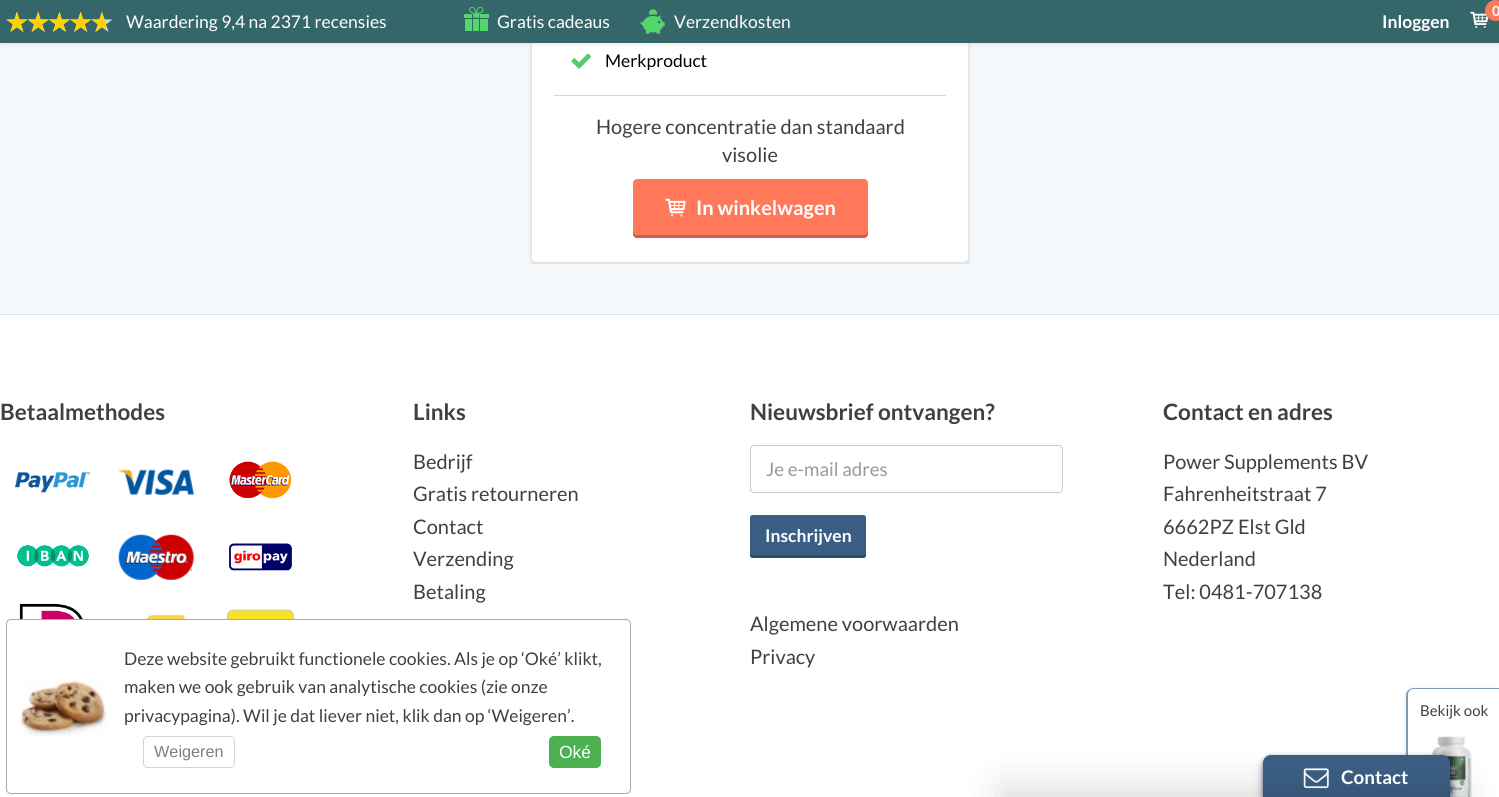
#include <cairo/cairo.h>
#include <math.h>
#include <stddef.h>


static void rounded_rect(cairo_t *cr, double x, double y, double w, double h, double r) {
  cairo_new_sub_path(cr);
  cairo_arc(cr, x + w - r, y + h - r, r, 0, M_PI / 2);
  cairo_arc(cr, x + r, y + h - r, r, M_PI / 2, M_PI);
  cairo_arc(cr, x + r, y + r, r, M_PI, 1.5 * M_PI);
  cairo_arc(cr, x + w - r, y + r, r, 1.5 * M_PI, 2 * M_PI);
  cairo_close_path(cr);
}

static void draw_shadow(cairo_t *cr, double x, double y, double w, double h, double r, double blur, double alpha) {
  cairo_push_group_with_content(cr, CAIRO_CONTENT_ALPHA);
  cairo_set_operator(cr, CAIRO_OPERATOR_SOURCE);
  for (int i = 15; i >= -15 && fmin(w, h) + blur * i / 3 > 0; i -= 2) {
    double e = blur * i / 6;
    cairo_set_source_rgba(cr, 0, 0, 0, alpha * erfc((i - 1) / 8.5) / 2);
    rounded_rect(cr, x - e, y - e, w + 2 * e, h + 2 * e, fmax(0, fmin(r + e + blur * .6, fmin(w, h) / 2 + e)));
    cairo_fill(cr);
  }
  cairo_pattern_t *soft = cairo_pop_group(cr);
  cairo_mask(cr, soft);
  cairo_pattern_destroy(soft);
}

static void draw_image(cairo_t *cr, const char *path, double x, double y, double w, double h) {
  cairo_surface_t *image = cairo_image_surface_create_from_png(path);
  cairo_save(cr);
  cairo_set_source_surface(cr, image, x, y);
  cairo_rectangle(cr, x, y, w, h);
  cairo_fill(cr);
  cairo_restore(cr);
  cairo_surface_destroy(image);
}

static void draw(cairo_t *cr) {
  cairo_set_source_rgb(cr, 246 / 255.0, 249 / 255.0, 252 / 255.0);
  cairo_paint(cr);
  cairo_save(cr);
  cairo_rectangle(cr, 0, 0, 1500, 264);
  cairo_clip(cr);
  cairo_set_source_rgb(cr, 0, 0, 0);
  draw_shadow(cr, 531, -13, 438, 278, 5, 2.5, 0.1);
  cairo_restore(cr);
  cairo_set_source_rgb(cr, 1, 1, 1);
  rounded_rect(cr, 531, -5, 438, 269, 5);
  cairo_fill(cr);
  cairo_set_source_rgba(cr, 175 / 255.0, 175 / 255.0, 175 / 255.0, 0.33);
  cairo_new_path(cr);
  cairo_move_to(cr, 969, 261);
  cairo_line_to(cr, 968, 263);
  cairo_line_to(cr, 966, 261);
  cairo_curve_to(cr, 967, 261, 968, 260, 968, 259);
  cairo_line_to(cr, 968, -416);
  cairo_line_to(cr, 967, -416);
  cairo_line_to(cr, 968, -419);
  cairo_line_to(cr, 969, -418);
  cairo_close_path(cr);
  cairo_fill(cr);
  cairo_new_path(cr);
  cairo_move_to(cr, 534, 264);
  cairo_line_to(cr, 532, 263);
  cairo_line_to(cr, 534, 261);
  cairo_line_to(cr, 536, 262);
  cairo_line_to(cr, 964, 262);
  cairo_line_to(cr, 966, 261);
  cairo_line_to(cr, 968, 263);
  cairo_line_to(cr, 966, 264);
  cairo_close_path(cr);
  cairo_fill(cr);
  cairo_new_path(cr);
  cairo_move_to(cr, 531, -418);
  cairo_line_to(cr, 532, -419);
  cairo_line_to(cr, 533, -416);
  cairo_line_to(cr, 532, -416);
  cairo_line_to(cr, 532, 259);
  cairo_curve_to(cr, 532, 260, 533, 261, 534, 261);
  cairo_line_to(cr, 532, 263);
  cairo_line_to(cr, 531, 261);
  cairo_close_path(cr);
  cairo_fill(cr);
  cairo_set_source_rgb(cr, 0, 0, 0);
  draw_shadow(cr, 0, 1, 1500, 43, 0, 2.5, 0.1);
  cairo_set_source_rgb(cr, 53 / 255.0, 102 / 255.0, 106 / 255.0);
  cairo_rectangle(cr, 0, 0, 1499, 43);
  cairo_fill(cr);
  draw_image(cr, "images/1.png", 6, 12, 22, 20);
  draw_image(cr, "images/2.png", 28, 12, 21, 20);
  draw_image(cr, "images/3.png", 49, 12, 21, 20);
  draw_image(cr, "images/4.png", 70, 12, 21, 20);
  draw_image(cr, "images/1.png", 91, 12, 22, 20);
  draw_image(cr, "images/5.png", 6, 12, 22, 20);
  draw_image(cr, "images/6.png", 28, 12, 21, 20);
  draw_image(cr, "images/7.png", 49, 12, 21, 20);
  draw_image(cr, "images/8.png", 70, 12, 21, 20);
  draw_image(cr, "images/9.png", 91, 12, 15, 20);
  draw_image(cr, "images/10.png", 464, 6, 25, 25);
  draw_image(cr, "images/11.png", 640, 9, 25, 25);
  draw_image(cr, "images/12.png", 1470, 11, 19, 17);
  cairo_set_source_rgb(cr, 1, 120 / 255.0, 90 / 255.0);
  cairo_arc(cr, 1495.5, 10.5, 10.5, 0, 2 * M_PI);
  cairo_fill(cr);
  draw_image(cr, "images/13.png", 571, 53, 20, 16);
  cairo_set_source_rgb(cr, 216 / 255.0, 216 / 255.0, 216 / 255.0);
  cairo_rectangle(cr, 554, 95, 392, 1);
  cairo_fill(cr);
  cairo_set_source_rgb(cr, 1, 120 / 255.0, 90 / 255.0);
  rounded_rect(cr, 633, 179, 235, 59, 4);
  cairo_fill(cr);
  cairo_set_source_rgba(cr, 0, 0, 0, 0.2);
  cairo_new_path(cr);
  cairo_move_to(cr, 633, 233);
  cairo_line_to(cr, 633, 234);
  cairo_curve_to(cr, 633, 236, 635, 238, 637, 238);
  cairo_line_to(cr, 864, 238);
  cairo_curve_to(cr, 866, 238, 868, 236, 868, 234);
  cairo_line_to(cr, 868, 231);
  cairo_curve_to(cr, 868, 233, 866, 235, 864, 235);
  cairo_line_to(cr, 636, 235);
  cairo_curve_to(cr, 635, 235, 634, 234, 633, 233);
  cairo_close_path(cr);
  cairo_fill(cr);
  draw_image(cr, "images/14.png", 665, 198, 21, 19);
  cairo_set_source_rgb(cr, 1, 1, 1);
  cairo_rectangle(cr, 0, 315, 1499, 482);
  cairo_fill(cr);
  cairo_set_source_rgb(cr, 223 / 255.0, 225 / 255.0, 228 / 255.0);
  cairo_rectangle(cr, 0, 314, 1499, 1);
  cairo_fill(cr);
  draw_image(cr, "images/15.png", 15, 472, 75, 21);
  draw_image(cr, "images/16.png", 118, 469, 76, 26);
  draw_image(cr, "images/17.png", 229, 461, 62, 38);
  draw_image(cr, "images/18.png", 17, 545, 72, 22);
  draw_image(cr, "images/19.png", 118, 534, 76, 46);
  draw_image(cr, "images/20.png", 229, 543, 63, 28);
  draw_image(cr, "images/21.png", 19, 603, 67, 16);
  draw_image(cr, "images/22.png", 129, 614, 56, 5);
  draw_image(cr, "images/23.png", 226, 609, 69, 10);
  rounded_rect(cr, 750.5, 445.5, 312, 47, 3.5);
  cairo_set_source_rgb(cr, 202 / 255.0, 202 / 255.0, 202 / 255.0);
  cairo_set_line_width(cr, 1);
  cairo_stroke(cr);
  cairo_set_source_rgb(cr, 59 / 255.0, 95 / 255.0, 132 / 255.0);
  rounded_rect(cr, 750, 515, 116, 43, 2.5);
  cairo_fill(cr);
  cairo_set_source_rgba(cr, 0, 0, 0, 0.2);
  cairo_new_path(cr);
  cairo_move_to(cr, 750, 552);
  cairo_line_to(cr, 750, 556);
  cairo_curve_to(cr, 750, 557, 751, 558, 752, 558);
  cairo_line_to(cr, 864, 558);
  cairo_curve_to(cr, 865, 558, 866, 557, 866, 556);
  cairo_line_to(cr, 866, 552);
  cairo_curve_to(cr, 866, 554, 865, 555, 864, 555);
  cairo_line_to(cr, 752, 555);
  cairo_curve_to(cr, 751, 555, 750, 554, 750, 552);
  cairo_close_path(cr);
  cairo_fill(cr);
  cairo_set_source_rgb(cr, 0, 0, 0);
  draw_shadow(cr, 1406, 689, 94, 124, 8, 2.5, 0.1);
  cairo_set_source_rgb(cr, 1, 1, 1);
  cairo_new_path(cr);
  cairo_move_to(cr, 1414, 688);
  cairo_line_to(cr, 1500, 688);
  cairo_line_to(cr, 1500, 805);
  cairo_line_to(cr, 1414, 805);
  cairo_curve_to(cr, 1409.5, 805, 1406, 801.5, 1406, 797);
  cairo_line_to(cr, 1406, 696);
  cairo_curve_to(cr, 1406, 691.5, 1409.5, 688, 1414, 688);
  cairo_close_path(cr);
  cairo_fill(cr);
  cairo_set_source_rgb(cr, 132 / 255.0, 154 / 255.0, 177 / 255.0);
  cairo_set_fill_rule(cr, CAIRO_FILL_RULE_EVEN_ODD);
  cairo_new_path(cr);
  cairo_move_to(cr, 1414, 688);
  cairo_line_to(cr, 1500, 688);
  cairo_line_to(cr, 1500, 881);
  cairo_line_to(cr, 1414, 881);
  cairo_curve_to(cr, 1410, 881, 1406, 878, 1406, 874);
  cairo_line_to(cr, 1406, 695);
  cairo_curve_to(cr, 1406, 691, 1410, 688, 1414, 688);
  cairo_close_path(cr);
  cairo_move_to(cr, 1414, 689);
  cairo_line_to(cr, 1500, 689);
  cairo_line_to(cr, 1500, 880);
  cairo_line_to(cr, 1414, 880);
  cairo_curve_to(cr, 1410, 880, 1408, 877, 1408, 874);
  cairo_line_to(cr, 1408, 695);
  cairo_curve_to(cr, 1408, 692, 1410, 689, 1414, 689);
  cairo_close_path(cr);
  cairo_fill(cr);
  draw_image(cr, "images/24.png", 1431, 736, 41, 61);
  cairo_set_source_rgb(cr, 0, 0, 0);
  draw_shadow(cr, 1263, 756, 187, 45, 8, 2, 0.28);
  cairo_set_source_rgb(cr, 50 / 255.0, 50 / 255.0, 93 / 255.0);
  draw_shadow(cr, 1263, 760, 187, 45, 8, 4, 0.61);
  cairo_set_source_rgb(cr, 59 / 255.0, 95 / 255.0, 132 / 255.0);
  cairo_new_path(cr);
  cairo_move_to(cr, 1271, 755);
  cairo_line_to(cr, 1442, 755);
  cairo_curve_to(cr, 1446.5, 755, 1450, 758.5, 1450, 763);
  cairo_line_to(cr, 1450, 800);
  cairo_line_to(cr, 1263, 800);
  cairo_line_to(cr, 1263, 763);
  cairo_curve_to(cr, 1263, 758.5, 1266.5, 755, 1271, 755);
  cairo_close_path(cr);
  cairo_fill(cr);
  draw_image(cr, "images/25.png", 1303, 768, 26, 21);
  cairo_set_source_rgb(cr, 0, 0, 0);
  draw_shadow(cr, 1004, 789, 455, 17, 0, 21, 0.15);
  draw_image(cr, "images/26.png", 20, 680, 87, 56);
  rounded_rect(cr, 6.5, 619.5, 624, 174, 4.5);
  cairo_set_source_rgb(cr, 169 / 255.0, 169 / 255.0, 169 / 255.0);
  cairo_stroke(cr);
  rounded_rect(cr, 143.5, 736.5, 91, 31, 4.5);
  cairo_set_source_rgb(cr, 211 / 255.0, 211 / 255.0, 211 / 255.0);
  cairo_stroke(cr);
  cairo_set_source_rgb(cr, 76 / 255.0, 175 / 255.0, 80 / 255.0);
  rounded_rect(cr, 549, 736, 52, 32, 5);
  cairo_fill(cr);
  cairo_select_font_face(cr, "Lato", CAIRO_FONT_SLANT_NORMAL, CAIRO_FONT_WEIGHT_NORMAL);
  cairo_set_font_size(cr, 17.5);
  cairo_set_source_rgb(cr, 1, 1, 1);
  cairo_move_to(cr, 126, 28);
  cairo_show_text(cr, "Waardering 9,4 na 2371 recensies");
  cairo_move_to(cr, 497, 28);
  cairo_show_text(cr, "Gratis cadeaus");
  cairo_move_to(cr, 674, 28);
  cairo_show_text(cr, "Verzendkosten");
  cairo_select_font_face(cr, "Lato", CAIRO_FONT_SLANT_NORMAL, CAIRO_FONT_WEIGHT_BOLD);
  cairo_set_font_size(cr, 14);
  cairo_move_to(cr, 1492, 16);
  cairo_show_text(cr, "0");
  cairo_set_font_size(cr, 17.5);
  cairo_move_to(cr, 1382, 28);
  cairo_show_text(cr, "Inloggen");
  cairo_select_font_face(cr, "Lato", CAIRO_FONT_SLANT_NORMAL, CAIRO_FONT_WEIGHT_NORMAL);
  cairo_set_source_rgb(cr, 0, 0, 0);
  cairo_move_to(cr, 605, 67);
  cairo_show_text(cr, "Merkproduct");
  cairo_set_font_size(cr, 20);
  cairo_set_source_rgb(cr, 64 / 255.0, 64 / 255.0, 64 / 255.0);
  cairo_move_to(cr, 596, 134);
  cairo_show_text(cr, "Hogere concentratie dan standaard");
  cairo_move_to(cr, 722, 162);
  cairo_show_text(cr, "visolie");
  cairo_select_font_face(cr, "Lato", CAIRO_FONT_SLANT_NORMAL, CAIRO_FONT_WEIGHT_BOLD);
  cairo_set_source_rgb(cr, 1, 1, 1);
  cairo_move_to(cr, 696, 215);
  cairo_show_text(cr, "In winkelwagen");
  cairo_set_font_size(cr, 22.5);
  cairo_set_source_rgb(cr, 64 / 255.0, 64 / 255.0, 64 / 255.0);
  cairo_move_to(cr, 0, 420);
  cairo_show_text(cr, "Betaalmethodes");
  cairo_move_to(cr, 413, 420);
  cairo_show_text(cr, "Links");
  cairo_select_font_face(cr, "Lato", CAIRO_FONT_SLANT_NORMAL, CAIRO_FONT_WEIGHT_NORMAL);
  cairo_set_font_size(cr, 20);
  cairo_move_to(cr, 413, 469);
  cairo_show_text(cr, "Bedrijf");
  cairo_move_to(cr, 413, 501);
  cairo_show_text(cr, "Gratis retourneren");
  cairo_move_to(cr, 413, 534);
  cairo_show_text(cr, "Contact");
  cairo_move_to(cr, 413, 566);
  cairo_show_text(cr, "Verzending");
  cairo_move_to(cr, 413, 599);
  cairo_show_text(cr, "Betaling");
  cairo_select_font_face(cr, "Lato", CAIRO_FONT_SLANT_NORMAL, CAIRO_FONT_WEIGHT_BOLD);
  cairo_set_font_size(cr, 22.5);
  cairo_move_to(cr, 750, 420);
  cairo_show_text(cr, "Nieuwsbrief ontvangen?");
  cairo_select_font_face(cr, "Lato", CAIRO_FONT_SLANT_NORMAL, CAIRO_FONT_WEIGHT_NORMAL);
  cairo_set_font_size(cr, 18.75);
  cairo_set_source_rgb(cr, 153 / 255.0, 153 / 255.0, 153 / 255.0);
  cairo_move_to(cr, 766, 476);
  cairo_show_text(cr, "Je e-mail adres");
  cairo_select_font_face(cr, "Lato", CAIRO_FONT_SLANT_NORMAL, CAIRO_FONT_WEIGHT_BOLD);
  cairo_set_font_size(cr, 17.5);
  cairo_set_source_rgb(cr, 1, 1, 1);
  cairo_move_to(cr, 765, 542);
  cairo_show_text(cr, "Inschrijven");
  cairo_select_font_face(cr, "Lato", CAIRO_FONT_SLANT_NORMAL, CAIRO_FONT_WEIGHT_NORMAL);
  cairo_set_font_size(cr, 20);
  cairo_set_source_rgb(cr, 64 / 255.0, 64 / 255.0, 64 / 255.0);
  cairo_move_to(cr, 750, 631);
  cairo_show_text(cr, "Algemene voorwaarden");
  cairo_move_to(cr, 750, 664);
  cairo_show_text(cr, "Privacy");
  cairo_select_font_face(cr, "Lato", CAIRO_FONT_SLANT_NORMAL, CAIRO_FONT_WEIGHT_BOLD);
  cairo_set_font_size(cr, 22.5);
  cairo_move_to(cr, 1163, 420);
  cairo_show_text(cr, "Contact en adres");
  cairo_select_font_face(cr, "Lato", CAIRO_FONT_SLANT_NORMAL, CAIRO_FONT_WEIGHT_NORMAL);
  cairo_set_font_size(cr, 20);
  cairo_move_to(cr, 1163, 469);
  cairo_show_text(cr, "Power Supplements BV");
  cairo_move_to(cr, 1163, 501);
  cairo_show_text(cr, "Fahrenheitstraat 7");
  cairo_move_to(cr, 1163, 534);
  cairo_show_text(cr, "6662PZ Elst Gld");
  cairo_move_to(cr, 1163, 566);
  cairo_show_text(cr, "Nederland");
  cairo_move_to(cr, 1163, 599);
  cairo_show_text(cr, "Tel: 0481-707138");
  cairo_set_font_size(cr, 15);
  cairo_move_to(cr, 1420, 716);
  cairo_show_text(cr, "Bekijk ook");
  cairo_select_font_face(cr, "Lato", CAIRO_FONT_SLANT_NORMAL, CAIRO_FONT_WEIGHT_BOLD);
  cairo_set_font_size(cr, 18.75);
  cairo_set_source_rgb(cr, 1, 1, 1);
  cairo_move_to(cr, 1341, 784);
  cairo_show_text(cr, "Contact");
  cairo_select_font_face(cr, "Lato", CAIRO_FONT_SLANT_NORMAL, CAIRO_FONT_WEIGHT_NORMAL);
  cairo_set_font_size(cr, 17.5);
  cairo_set_source_rgb(cr, 64 / 255.0, 64 / 255.0, 64 / 255.0);
  cairo_move_to(cr, 124, 665);
  cairo_show_text(cr, "Deze website gebruikt functionele cookies. Als je op ‘Oké’ klikt,");
  cairo_move_to(cr, 124, 693);
  cairo_show_text(cr, "maken we ook gebruik van analytische cookies (zie onze");
  cairo_move_to(cr, 124, 722);
  cairo_show_text(cr, "privacypagina). Wil je dat liever niet, klik dan op ‘Weigeren’.");
  cairo_select_font_face(cr, "Liberation Sans", CAIRO_FONT_SLANT_NORMAL, CAIRO_FONT_WEIGHT_NORMAL);
  cairo_set_font_size(cr, 16.25);
  cairo_set_source_rgb(cr, 128 / 255.0, 128 / 255.0, 128 / 255.0);
  cairo_move_to(cr, 154, 757);
  cairo_show_text(cr, "Weigeren");
  cairo_set_font_size(cr, 17.5);
  cairo_set_source_rgb(cr, 1, 1, 1);
  cairo_move_to(cr, 559, 758);
  cairo_show_text(cr, "Oké");
}

int main(void) {
  cairo_surface_t *surface = cairo_image_surface_create(CAIRO_FORMAT_RGB24, 1499, 797);
  cairo_t *cr = cairo_create(surface);
  cairo_font_options_t *options = cairo_font_options_create();
  cairo_font_options_set_hint_metrics(options, CAIRO_HINT_METRICS_OFF);
  cairo_font_options_set_hint_style(options, CAIRO_HINT_STYLE_NONE);
  cairo_set_font_options(cr, options);
  cairo_set_miter_limit(cr, 4);
  draw(cr);
  cairo_surface_write_to_png(surface, "out.png");
  cairo_font_options_destroy(options);
  cairo_destroy(cr);
  cairo_surface_destroy(surface);
  return 0;
}
